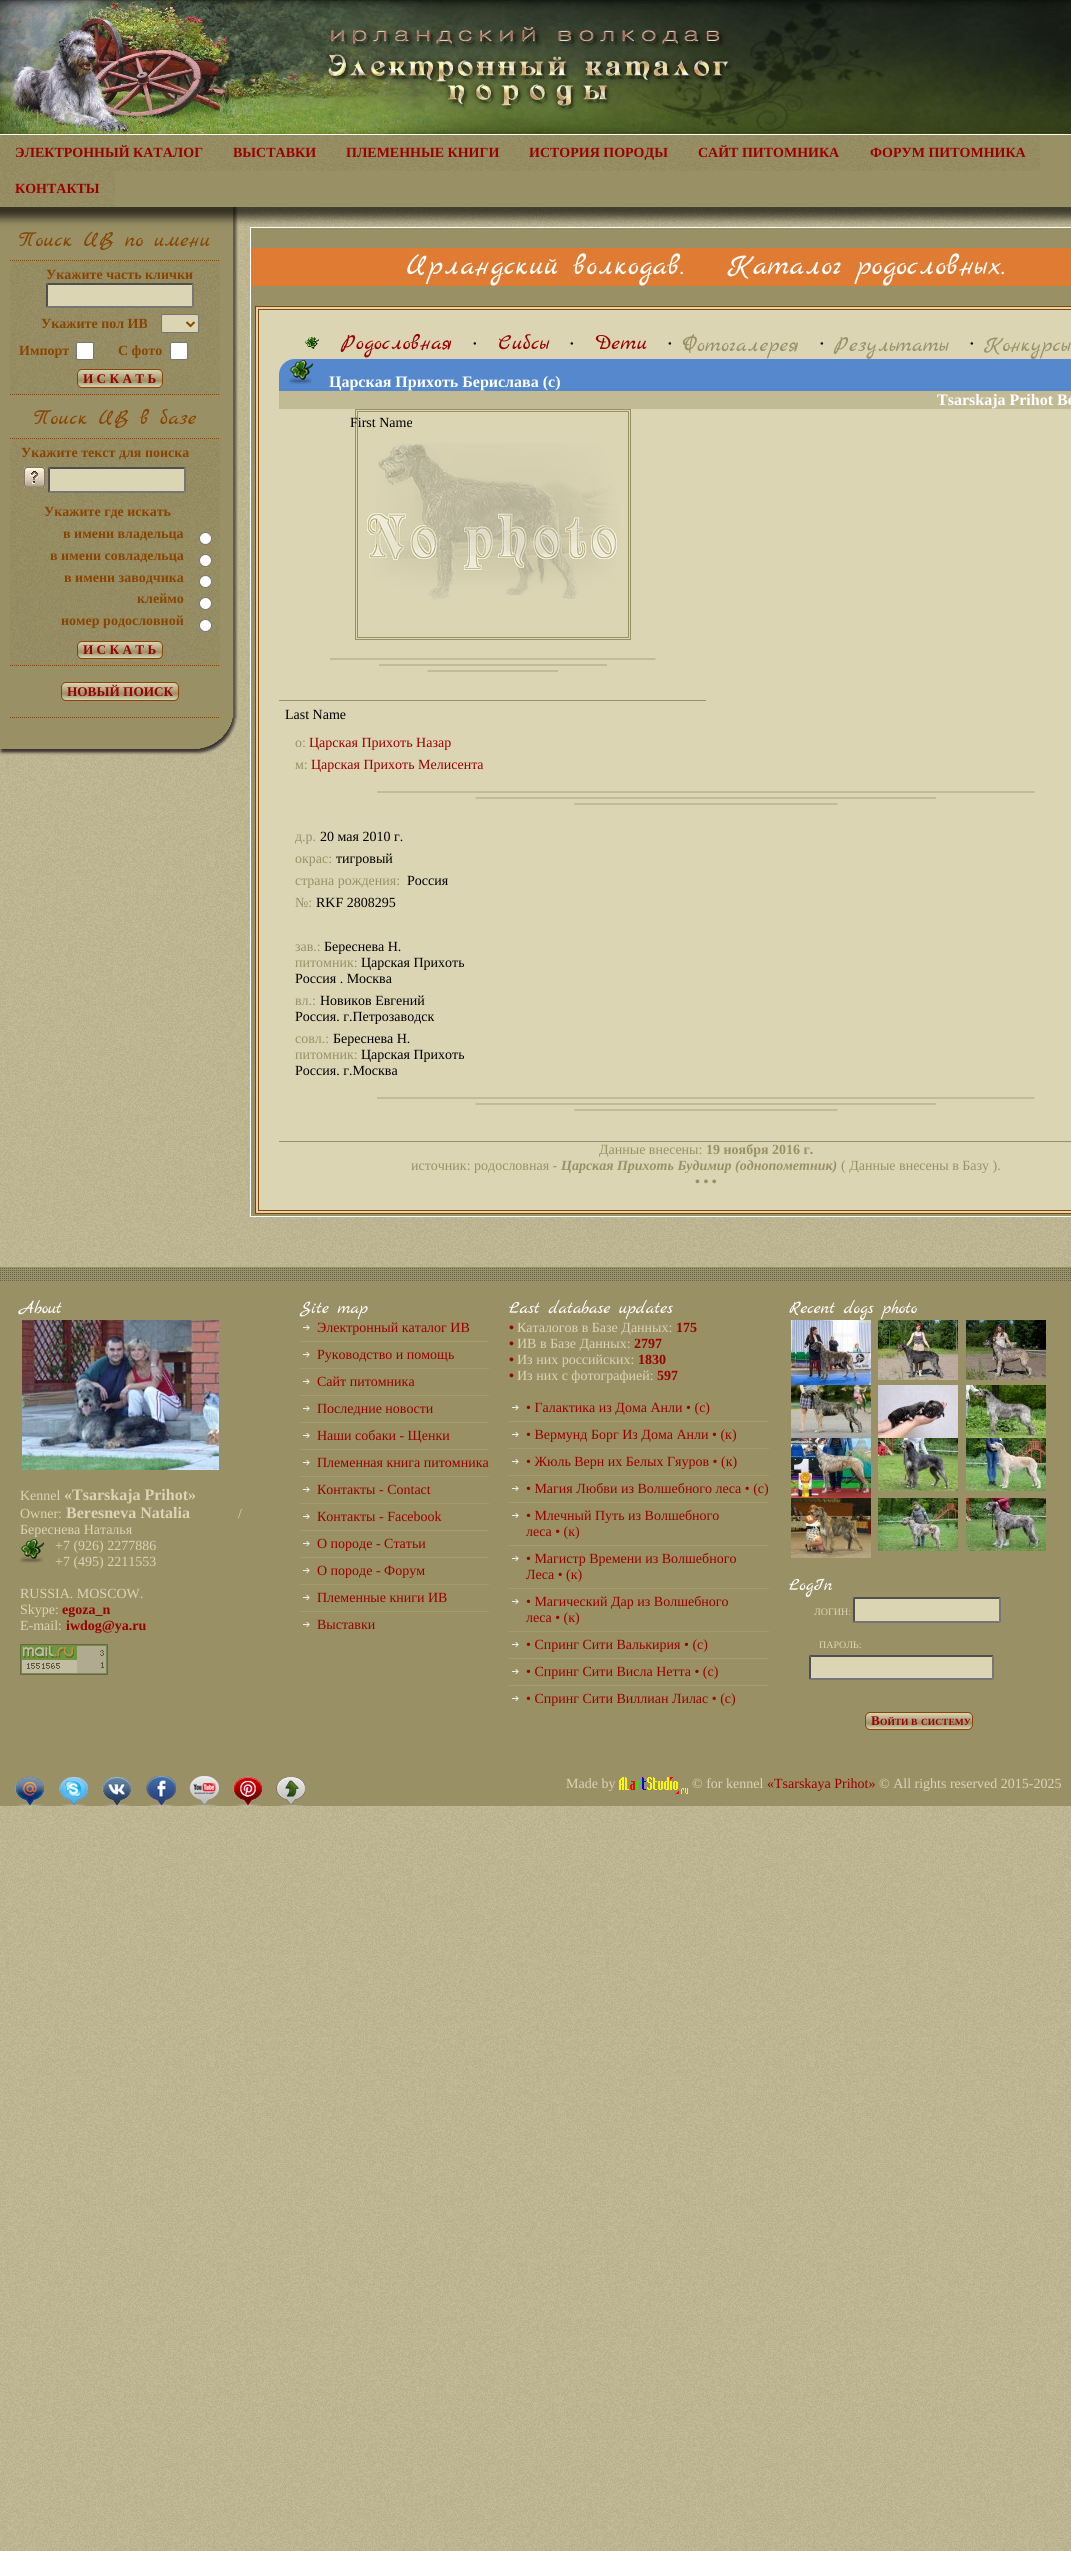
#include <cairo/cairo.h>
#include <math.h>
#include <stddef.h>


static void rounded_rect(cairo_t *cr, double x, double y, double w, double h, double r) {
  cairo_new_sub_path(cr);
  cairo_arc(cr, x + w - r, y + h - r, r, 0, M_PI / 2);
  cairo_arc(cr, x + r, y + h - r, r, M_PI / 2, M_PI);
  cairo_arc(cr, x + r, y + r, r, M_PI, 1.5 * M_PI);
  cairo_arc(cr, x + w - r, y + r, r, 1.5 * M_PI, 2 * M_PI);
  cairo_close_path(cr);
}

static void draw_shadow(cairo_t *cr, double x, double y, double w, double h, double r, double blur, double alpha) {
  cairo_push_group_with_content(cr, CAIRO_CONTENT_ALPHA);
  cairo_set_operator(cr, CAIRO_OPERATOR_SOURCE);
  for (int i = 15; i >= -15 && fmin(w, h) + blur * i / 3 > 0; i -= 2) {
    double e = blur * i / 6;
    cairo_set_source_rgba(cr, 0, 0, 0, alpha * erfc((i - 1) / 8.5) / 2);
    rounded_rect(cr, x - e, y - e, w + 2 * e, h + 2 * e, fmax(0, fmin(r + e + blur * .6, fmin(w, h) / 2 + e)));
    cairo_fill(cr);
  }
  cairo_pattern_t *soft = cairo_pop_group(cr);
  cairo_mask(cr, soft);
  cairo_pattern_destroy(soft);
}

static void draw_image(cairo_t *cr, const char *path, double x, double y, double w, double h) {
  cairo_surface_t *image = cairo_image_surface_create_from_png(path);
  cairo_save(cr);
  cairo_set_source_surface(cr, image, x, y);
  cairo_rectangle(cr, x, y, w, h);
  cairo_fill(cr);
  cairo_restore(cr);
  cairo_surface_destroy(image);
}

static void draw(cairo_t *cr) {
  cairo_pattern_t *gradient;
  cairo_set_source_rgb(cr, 194 / 255.0, 186 / 255.0, 148 / 255.0);
  cairo_paint(cr);
  draw_image(cr, "images/1.png", 0, 207, 1071, 2344);
  draw_image(cr, "images/2.png", 0, 0, 1071, 134);
  cairo_set_source_rgb(cr, 0, 0, 0);
  draw_shadow(cr, 0, -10, 1071, 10, 0, 5, 0.8);
  cairo_set_source_rgb(cr, 154 / 255.0, 144 / 255.0, 102 / 255.0);
  cairo_rectangle(cr, 0, 135, 1071, 72);
  cairo_fill(cr);
  cairo_set_source_rgb(cr, 1, 1, 1);
  cairo_rectangle(cr, 0, 134, 1071, 1);
  cairo_fill(cr);
  draw_image(cr, "images/3.png", 0, 135, 218, 36);
  draw_image(cr, "images/4.png", 218, 135, 113, 36);
  draw_image(cr, "images/5.png", 331, 135, 183, 36);
  draw_image(cr, "images/6.png", 514, 135, 169, 36);
  draw_image(cr, "images/7.png", 683, 135, 172, 36);
  draw_image(cr, "images/8.png", 855, 135, 185, 36);
  draw_image(cr, "images/9.png", 0, 171, 115, 36);
  draw_image(cr, "images/10.png", 240, 207, 831, 19);
  draw_image(cr, "images/11.png", 0, 207, 240, 551);
  cairo_new_path(cr);
  cairo_move_to(cr, 10, 260.5);
  cairo_line_to(cr, 220, 260.5);
  cairo_set_source_rgb(cr, 136 / 255.0, 68 / 255.0, 0);
  cairo_set_line_width(cr, 1);
  cairo_set_dash(cr, (double[]){1, 1}, 2, 0);
  cairo_stroke(cr);
  draw_image(cr, "images/12.png", 10, 261, 210, 134);
  cairo_new_path(cr);
  cairo_move_to(cr, 10, 394.5);
  cairo_line_to(cr, 220, 394.5);
  cairo_stroke(cr);
  cairo_set_source_rgb(cr, 219 / 255.0, 213 / 255.0, 180 / 255.0);
  cairo_rectangle(cr, 46, 283, 148, 25);
  cairo_fill(cr);
  cairo_set_source_rgb(cr, 79 / 255.0, 79 / 255.0, 79 / 255.0);
  cairo_new_path(cr);
  cairo_move_to(cr, 46, 283);
  cairo_line_to(cr, 194, 283);
  cairo_line_to(cr, 192, 285);
  cairo_line_to(cr, 48, 285);
  cairo_close_path(cr);
  cairo_fill(cr);
  cairo_set_source_rgb(cr, 118 / 255.0, 118 / 255.0, 118 / 255.0);
  cairo_new_path(cr);
  cairo_move_to(cr, 194, 283);
  cairo_line_to(cr, 194, 308);
  cairo_line_to(cr, 192, 306);
  cairo_line_to(cr, 192, 285);
  cairo_close_path(cr);
  cairo_fill(cr);
  cairo_new_path(cr);
  cairo_move_to(cr, 194, 308);
  cairo_line_to(cr, 46, 308);
  cairo_line_to(cr, 48, 306);
  cairo_line_to(cr, 192, 306);
  cairo_close_path(cr);
  cairo_fill(cr);
  cairo_set_source_rgb(cr, 79 / 255.0, 79 / 255.0, 79 / 255.0);
  cairo_new_path(cr);
  cairo_move_to(cr, 46, 308);
  cairo_line_to(cr, 46, 283);
  cairo_line_to(cr, 48, 285);
  cairo_line_to(cr, 48, 306);
  cairo_close_path(cr);
  cairo_fill(cr);
  cairo_set_source_rgb(cr, 219 / 255.0, 213 / 255.0, 180 / 255.0);
  rounded_rect(cr, 161.5, 314.5, 37, 18, 1.5);
  cairo_fill_preserve(cr);
  cairo_set_source_rgb(cr, 118 / 255.0, 118 / 255.0, 118 / 255.0);
  cairo_set_dash(cr, NULL, 0, 0);
  cairo_stroke(cr);
  cairo_new_path(cr);
  cairo_move_to(cr, 186.5, 322);
  cairo_line_to(cr, 190.5, 326);
  cairo_line_to(cr, 194.5, 322);
  cairo_set_source_rgb(cr, 136 / 255.0, 68 / 255.0, 0);
  cairo_set_line_width(cr, 2);
  cairo_stroke(cr);
  cairo_set_source_rgb(cr, 1, 1, 1);
  rounded_rect(cr, 76.5, 342.5, 17, 17, 1.5);
  cairo_fill_preserve(cr);
  cairo_set_source_rgb(cr, 118 / 255.0, 118 / 255.0, 118 / 255.0);
  cairo_set_line_width(cr, 1);
  cairo_stroke(cr);
  cairo_set_source_rgb(cr, 1, 1, 1);
  rounded_rect(cr, 170.5, 342.5, 17, 17, 1.5);
  cairo_fill_preserve(cr);
  cairo_set_source_rgb(cr, 118 / 255.0, 118 / 255.0, 118 / 255.0);
  cairo_stroke(cr);
  cairo_save(cr);
  rounded_rect(cr, 77, 369, 86, 19, 5);
  cairo_clip(cr);
  gradient = cairo_pattern_create_linear(120, 387, 120, 370);
  cairo_pattern_add_color_stop_rgba(gradient, 0, 219 / 255.0, 213 / 255.0, 180 / 255.0, 1);
  cairo_pattern_add_color_stop_rgba(gradient, 0.36, 154 / 255.0, 144 / 255.0, 102 / 255.0, 1);
  cairo_pattern_add_color_stop_rgba(gradient, 1, 219 / 255.0, 213 / 255.0, 180 / 255.0, 1);
  cairo_set_source(cr, gradient);
  cairo_pattern_destroy(gradient);
  cairo_rectangle(cr, 77, 370, 86, 17);
  cairo_fill(cr);
  cairo_restore(cr);
  rounded_rect(cr, 77.5, 369.5, 85, 18, 4.5);
  cairo_set_source_rgb(cr, 136 / 255.0, 68 / 255.0, 0);
  cairo_stroke(cr);
  cairo_new_path(cr);
  cairo_move_to(cr, 10, 438.5);
  cairo_line_to(cr, 220, 438.5);
  cairo_set_dash(cr, (double[]){1, 1}, 2, 0);
  cairo_stroke(cr);
  draw_image(cr, "images/13.png", 10, 439, 210, 227);
  cairo_new_path(cr);
  cairo_move_to(cr, 10, 665.5);
  cairo_line_to(cr, 220, 665.5);
  cairo_stroke(cr);
  cairo_new_path(cr);
  cairo_move_to(cr, 24, 487.5);
  cairo_line_to(cr, 45, 487.5);
  cairo_set_source_rgb(cr, 154 / 255.0, 144 / 255.0, 102 / 255.0);
  cairo_stroke(cr);
  draw_image(cr, "images/14.png", 24, 467, 21, 20);
  cairo_set_source_rgb(cr, 219 / 255.0, 213 / 255.0, 180 / 255.0);
  cairo_rectangle(cr, 48, 467, 138, 26);
  cairo_fill(cr);
  cairo_set_source_rgb(cr, 79 / 255.0, 79 / 255.0, 79 / 255.0);
  cairo_new_path(cr);
  cairo_move_to(cr, 48, 467);
  cairo_line_to(cr, 186, 467);
  cairo_line_to(cr, 184, 469);
  cairo_line_to(cr, 50, 469);
  cairo_close_path(cr);
  cairo_fill(cr);
  cairo_set_source_rgb(cr, 118 / 255.0, 118 / 255.0, 118 / 255.0);
  cairo_new_path(cr);
  cairo_move_to(cr, 186, 467);
  cairo_line_to(cr, 186, 493);
  cairo_line_to(cr, 184, 491);
  cairo_line_to(cr, 184, 469);
  cairo_close_path(cr);
  cairo_fill(cr);
  cairo_new_path(cr);
  cairo_move_to(cr, 186, 493);
  cairo_line_to(cr, 48, 493);
  cairo_line_to(cr, 50, 491);
  cairo_line_to(cr, 184, 491);
  cairo_close_path(cr);
  cairo_fill(cr);
  cairo_set_source_rgb(cr, 79 / 255.0, 79 / 255.0, 79 / 255.0);
  cairo_new_path(cr);
  cairo_move_to(cr, 48, 493);
  cairo_line_to(cr, 48, 467);
  cairo_line_to(cr, 50, 469);
  cairo_line_to(cr, 50, 491);
  cairo_close_path(cr);
  cairo_fill(cr);
  cairo_set_source_rgb(cr, 1, 1, 1);
  cairo_arc(cr, 205.5, 538.5, 6, 0, 2 * M_PI);
  cairo_fill_preserve(cr);
  cairo_set_source_rgb(cr, 118 / 255.0, 118 / 255.0, 118 / 255.0);
  cairo_set_dash(cr, NULL, 0, 0);
  cairo_stroke(cr);
  cairo_set_source_rgb(cr, 1, 1, 1);
  cairo_arc(cr, 205.5, 560.5, 6, 0, 2 * M_PI);
  cairo_fill_preserve(cr);
  cairo_set_source_rgb(cr, 118 / 255.0, 118 / 255.0, 118 / 255.0);
  cairo_stroke(cr);
  cairo_set_source_rgb(cr, 1, 1, 1);
  cairo_arc(cr, 205.5, 581.5, 6, 0, 2 * M_PI);
  cairo_fill_preserve(cr);
  cairo_set_source_rgb(cr, 118 / 255.0, 118 / 255.0, 118 / 255.0);
  cairo_stroke(cr);
  cairo_set_source_rgb(cr, 1, 1, 1);
  cairo_arc(cr, 205.5, 603.5, 6, 0, 2 * M_PI);
  cairo_fill_preserve(cr);
  cairo_set_source_rgb(cr, 118 / 255.0, 118 / 255.0, 118 / 255.0);
  cairo_stroke(cr);
  cairo_set_source_rgb(cr, 1, 1, 1);
  cairo_arc(cr, 205.5, 625.5, 6, 0, 2 * M_PI);
  cairo_fill_preserve(cr);
  cairo_set_source_rgb(cr, 118 / 255.0, 118 / 255.0, 118 / 255.0);
  cairo_stroke(cr);
  cairo_save(cr);
  rounded_rect(cr, 77, 641, 86, 18, 5);
  cairo_clip(cr);
  gradient = cairo_pattern_create_linear(120, 658, 120, 642);
  cairo_pattern_add_color_stop_rgba(gradient, 0, 219 / 255.0, 213 / 255.0, 180 / 255.0, 1);
  cairo_pattern_add_color_stop_rgba(gradient, 0.36, 154 / 255.0, 144 / 255.0, 102 / 255.0, 1);
  cairo_pattern_add_color_stop_rgba(gradient, 1, 219 / 255.0, 213 / 255.0, 180 / 255.0, 1);
  cairo_set_source(cr, gradient);
  cairo_pattern_destroy(gradient);
  cairo_rectangle(cr, 77, 642, 86, 16);
  cairo_fill(cr);
  cairo_restore(cr);
  rounded_rect(cr, 77.5, 641.5, 85, 17, 4.5);
  cairo_set_source_rgb(cr, 136 / 255.0, 68 / 255.0, 0);
  cairo_stroke(cr);
  cairo_new_path(cr);
  cairo_move_to(cr, 10, 717.5);
  cairo_line_to(cr, 220, 717.5);
  cairo_set_dash(cr, (double[]){1, 1}, 2, 0);
  cairo_stroke(cr);
  cairo_save(cr);
  rounded_rect(cr, 61, 682, 118, 19, 5);
  cairo_clip(cr);
  gradient = cairo_pattern_create_linear(120, 700, 120, 683);
  cairo_pattern_add_color_stop_rgba(gradient, 0, 219 / 255.0, 213 / 255.0, 180 / 255.0, 1);
  cairo_pattern_add_color_stop_rgba(gradient, 0.36, 154 / 255.0, 144 / 255.0, 102 / 255.0, 1);
  cairo_pattern_add_color_stop_rgba(gradient, 1, 219 / 255.0, 213 / 255.0, 180 / 255.0, 1);
  cairo_set_source(cr, gradient);
  cairo_pattern_destroy(gradient);
  cairo_rectangle(cr, 61, 683, 118, 17);
  cairo_fill(cr);
  cairo_restore(cr);
  rounded_rect(cr, 61.5, 682.5, 117, 18, 4.5);
  cairo_set_dash(cr, NULL, 0, 0);
  cairo_stroke(cr);
  cairo_set_source_rgb(cr, 154 / 255.0, 144 / 255.0, 102 / 255.0);
  cairo_rectangle(cr, 250.5, 227.5, 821, 989);
  cairo_fill_preserve(cr);
  cairo_set_source_rgb(cr, 1, 1, 1);
  cairo_stroke(cr);
  cairo_set_source_rgb(cr, 223 / 255.0, 123 / 255.0, 51 / 255.0);
  cairo_rectangle(cr, 251, 248, 820, 38);
  cairo_fill(cr);
  cairo_set_source_rgb(cr, 219 / 255.0, 213 / 255.0, 180 / 255.0);
  cairo_rectangle(cr, 255.5, 306.5, 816, 907);
  cairo_fill_preserve(cr);
  cairo_set_source_rgb(cr, 136 / 255.0, 68 / 255.0, 0);
  cairo_stroke(cr);
  cairo_rectangle(cr, 258.5, 309.5, 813, 901);
  cairo_stroke(cr);
  draw_image(cr, "images/15.png", 305, 337, 14, 12);
  cairo_set_source_rgb(cr, 85 / 255.0, 136 / 255.0, 204 / 255.0);
  cairo_new_path(cr);
  cairo_move_to(cr, 295, 359);
  cairo_line_to(cr, 1071, 359);
  cairo_curve_to(cr, 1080, 359, 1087, 366, 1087, 375);
  cairo_line_to(cr, 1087, 409);
  cairo_line_to(cr, 279, 409);
  cairo_line_to(cr, 279, 375);
  cairo_curve_to(cr, 279, 366, 286, 359, 295, 359);
  cairo_close_path(cr);
  cairo_fill(cr);
  draw_image(cr, "images/16.png", 289, 360, 24, 24);
  cairo_set_source_rgb(cr, 194 / 255.0, 186 / 255.0, 148 / 255.0);
  cairo_rectangle(cr, 279, 391, 792, 18);
  cairo_fill(cr);
  cairo_set_source_rgb(cr, 154 / 255.0, 144 / 255.0, 102 / 255.0);
  cairo_rectangle(cr, 279, 700, 427, 1);
  cairo_fill(cr);
  cairo_rectangle(cr, 355.5, 409.5, 275, 230);
  cairo_stroke(cr);
  cairo_rectangle(cr, 357.5, 411.5, 271, 226);
  cairo_stroke(cr);
  draw_image(cr, "images/17.png", 366, 443, 252, 157);
  cairo_new_path(cr);
  cairo_move_to(cr, 330, 659);
  cairo_line_to(cr, 655.5, 659);
  cairo_set_source_rgb(cr, 170 / 255.0, 161 / 255.0, 121 / 255.0);
  cairo_stroke(cr);
  cairo_new_path(cr);
  cairo_move_to(cr, 379, 665);
  cairo_line_to(cr, 607, 665);
  cairo_stroke(cr);
  cairo_new_path(cr);
  cairo_move_to(cr, 427.5, 671);
  cairo_line_to(cr, 558, 671);
  cairo_stroke(cr);
  cairo_set_source_rgb(cr, 154 / 255.0, 144 / 255.0, 102 / 255.0);
  cairo_rectangle(cr, 279, 1141, 792, 1);
  cairo_fill(cr);
  cairo_new_path(cr);
  cairo_move_to(cr, 377, 792);
  cairo_line_to(cr, 1034.5, 792);
  cairo_set_source_rgb(cr, 170 / 255.0, 161 / 255.0, 121 / 255.0);
  cairo_stroke(cr);
  cairo_new_path(cr);
  cairo_move_to(cr, 475.5, 798);
  cairo_line_to(cr, 936, 798);
  cairo_stroke(cr);
  cairo_new_path(cr);
  cairo_move_to(cr, 574.5, 804);
  cairo_line_to(cr, 837.5, 804);
  cairo_stroke(cr);
  cairo_new_path(cr);
  cairo_move_to(cr, 377, 1098);
  cairo_line_to(cr, 1034.5, 1098);
  cairo_stroke(cr);
  cairo_new_path(cr);
  cairo_move_to(cr, 475.5, 1104);
  cairo_line_to(cr, 936, 1104);
  cairo_stroke(cr);
  cairo_new_path(cr);
  cairo_move_to(cr, 574.5, 1110);
  cairo_line_to(cr, 837.5, 1110);
  cairo_stroke(cr);
  cairo_set_source_rgb(cr, 154 / 255.0, 144 / 255.0, 102 / 255.0);
  cairo_rectangle(cr, 0, 1267, 1071, 539);
  cairo_fill(cr);
  draw_image(cr, "images/18.png", 0, 1268, 1071, 13);
  draw_image(cr, "images/19.png", 22, 1320, 197, 150);
  draw_image(cr, "images/20.png", 20, 1539, 24, 24);
  draw_image(cr, "images/21.png", 20, 1644, 88, 31);
  draw_image(cr, "images/22.png", 303, 1325, 7, 5);
  cairo_set_source_rgb(cr, 164 / 255.0, 155 / 255.0, 117 / 255.0);
  cairo_rectangle(cr, 300, 1341, 189, 1);
  cairo_fill(cr);
  draw_image(cr, "images/22.png", 303, 1352, 7, 5);
  cairo_rectangle(cr, 300, 1368, 189, 1);
  cairo_fill(cr);
  draw_image(cr, "images/22.png", 303, 1379, 7, 5);
  cairo_rectangle(cr, 300, 1395, 189, 1);
  cairo_fill(cr);
  draw_image(cr, "images/22.png", 303, 1406, 7, 5);
  cairo_rectangle(cr, 300, 1422, 189, 1);
  cairo_fill(cr);
  draw_image(cr, "images/22.png", 303, 1433, 7, 5);
  cairo_rectangle(cr, 300, 1449, 189, 1);
  cairo_fill(cr);
  draw_image(cr, "images/22.png", 303, 1460, 7, 5);
  cairo_rectangle(cr, 300, 1476, 189, 1);
  cairo_fill(cr);
  draw_image(cr, "images/22.png", 303, 1487, 7, 5);
  cairo_rectangle(cr, 300, 1503, 189, 1);
  cairo_fill(cr);
  draw_image(cr, "images/22.png", 303, 1514, 7, 5);
  cairo_rectangle(cr, 300, 1530, 189, 1);
  cairo_fill(cr);
  draw_image(cr, "images/22.png", 303, 1541, 7, 5);
  cairo_rectangle(cr, 300, 1557, 189, 1);
  cairo_fill(cr);
  draw_image(cr, "images/22.png", 303, 1568, 7, 5);
  cairo_rectangle(cr, 300, 1584, 189, 1);
  cairo_fill(cr);
  draw_image(cr, "images/22.png", 303, 1595, 7, 5);
  cairo_rectangle(cr, 300, 1611, 189, 1);
  cairo_fill(cr);
  draw_image(cr, "images/22.png", 303, 1622, 7, 5);
  draw_image(cr, "images/22.png", 512, 1405, 7, 5);
  cairo_rectangle(cr, 509, 1421, 260, 1);
  cairo_fill(cr);
  draw_image(cr, "images/22.png", 512, 1432, 7, 5);
  cairo_rectangle(cr, 509, 1448, 260, 1);
  cairo_fill(cr);
  draw_image(cr, "images/22.png", 512, 1459, 7, 5);
  cairo_rectangle(cr, 509, 1475, 260, 1);
  cairo_fill(cr);
  draw_image(cr, "images/22.png", 512, 1486, 7, 5);
  cairo_rectangle(cr, 509, 1502, 260, 1);
  cairo_fill(cr);
  draw_image(cr, "images/22.png", 512, 1513, 7, 5);
  cairo_rectangle(cr, 509, 1545, 260, 1);
  cairo_fill(cr);
  draw_image(cr, "images/22.png", 512, 1556, 7, 5);
  cairo_rectangle(cr, 509, 1588, 260, 1);
  cairo_fill(cr);
  draw_image(cr, "images/22.png", 512, 1599, 7, 5);
  cairo_rectangle(cr, 509, 1631, 260, 1);
  cairo_fill(cr);
  draw_image(cr, "images/22.png", 512, 1642, 7, 5);
  cairo_rectangle(cr, 509, 1658, 260, 1);
  cairo_fill(cr);
  draw_image(cr, "images/22.png", 512, 1669, 7, 5);
  cairo_rectangle(cr, 509, 1685, 260, 1);
  cairo_fill(cr);
  draw_image(cr, "images/22.png", 512, 1696, 7, 5);
  draw_image(cr, "images/23.png", 791, 1320, 80, 65);
  draw_image(cr, "images/24.png", 878, 1320, 80, 60);
  draw_image(cr, "images/25.png", 966, 1320, 80, 60);
  draw_image(cr, "images/26.png", 791, 1385, 80, 53);
  draw_image(cr, "images/27.png", 878, 1385, 80, 53);
  draw_image(cr, "images/28.png", 966, 1385, 80, 53);
  draw_image(cr, "images/29.png", 791, 1438, 80, 60);
  draw_image(cr, "images/30.png", 878, 1438, 80, 53);
  draw_image(cr, "images/31.png", 966, 1438, 80, 53);
  draw_image(cr, "images/32.png", 791, 1498, 80, 60);
  draw_image(cr, "images/33.png", 878, 1498, 80, 53);
  draw_image(cr, "images/34.png", 966, 1498, 80, 53);
  cairo_set_source_rgb(cr, 219 / 255.0, 213 / 255.0, 180 / 255.0);
  cairo_rectangle(cr, 853, 1597, 148, 26);
  cairo_fill(cr);
  cairo_set_source_rgb(cr, 79 / 255.0, 79 / 255.0, 79 / 255.0);
  cairo_new_path(cr);
  cairo_move_to(cr, 853, 1597);
  cairo_line_to(cr, 1001, 1597);
  cairo_line_to(cr, 999, 1599);
  cairo_line_to(cr, 855, 1599);
  cairo_close_path(cr);
  cairo_fill(cr);
  cairo_set_source_rgb(cr, 118 / 255.0, 118 / 255.0, 118 / 255.0);
  cairo_new_path(cr);
  cairo_move_to(cr, 1001, 1597);
  cairo_line_to(cr, 1001, 1623);
  cairo_line_to(cr, 999, 1621);
  cairo_line_to(cr, 999, 1599);
  cairo_close_path(cr);
  cairo_fill(cr);
  cairo_new_path(cr);
  cairo_move_to(cr, 1001, 1623);
  cairo_line_to(cr, 853, 1623);
  cairo_line_to(cr, 855, 1621);
  cairo_line_to(cr, 999, 1621);
  cairo_close_path(cr);
  cairo_fill(cr);
  cairo_set_source_rgb(cr, 79 / 255.0, 79 / 255.0, 79 / 255.0);
  cairo_new_path(cr);
  cairo_move_to(cr, 853, 1623);
  cairo_line_to(cr, 853, 1597);
  cairo_line_to(cr, 855, 1599);
  cairo_line_to(cr, 855, 1621);
  cairo_close_path(cr);
  cairo_fill(cr);
  cairo_set_source_rgb(cr, 219 / 255.0, 213 / 255.0, 180 / 255.0);
  cairo_rectangle(cr, 809, 1655, 185, 25);
  cairo_fill(cr);
  cairo_set_source_rgb(cr, 79 / 255.0, 79 / 255.0, 79 / 255.0);
  cairo_new_path(cr);
  cairo_move_to(cr, 809, 1655);
  cairo_line_to(cr, 994, 1655);
  cairo_line_to(cr, 992, 1657);
  cairo_line_to(cr, 811, 1657);
  cairo_close_path(cr);
  cairo_fill(cr);
  cairo_set_source_rgb(cr, 118 / 255.0, 118 / 255.0, 118 / 255.0);
  cairo_new_path(cr);
  cairo_move_to(cr, 994, 1655);
  cairo_line_to(cr, 994, 1680);
  cairo_line_to(cr, 992, 1678);
  cairo_line_to(cr, 992, 1657);
  cairo_close_path(cr);
  cairo_fill(cr);
  cairo_new_path(cr);
  cairo_move_to(cr, 994, 1680);
  cairo_line_to(cr, 809, 1680);
  cairo_line_to(cr, 811, 1678);
  cairo_line_to(cr, 992, 1678);
  cairo_close_path(cr);
  cairo_fill(cr);
  cairo_set_source_rgb(cr, 79 / 255.0, 79 / 255.0, 79 / 255.0);
  cairo_new_path(cr);
  cairo_move_to(cr, 809, 1680);
  cairo_line_to(cr, 809, 1655);
  cairo_line_to(cr, 811, 1657);
  cairo_line_to(cr, 811, 1678);
  cairo_close_path(cr);
  cairo_fill(cr);
  cairo_save(cr);
  rounded_rect(cr, 865, 1712, 108, 18, 5);
  cairo_clip(cr);
  gradient = cairo_pattern_create_linear(919, 1729, 919, 1713);
  cairo_pattern_add_color_stop_rgba(gradient, 0, 219 / 255.0, 213 / 255.0, 180 / 255.0, 1);
  cairo_pattern_add_color_stop_rgba(gradient, 0.36, 154 / 255.0, 144 / 255.0, 102 / 255.0, 1);
  cairo_pattern_add_color_stop_rgba(gradient, 1, 219 / 255.0, 213 / 255.0, 180 / 255.0, 1);
  cairo_set_source(cr, gradient);
  cairo_pattern_destroy(gradient);
  cairo_rectangle(cr, 865, 1713, 108, 16);
  cairo_fill(cr);
  cairo_restore(cr);
  rounded_rect(cr, 865.5, 1712.5, 107, 17, 4.5);
  cairo_set_source_rgb(cr, 136 / 255.0, 68 / 255.0, 0);
  cairo_stroke(cr);
  draw_image(cr, "images/35.png", 15, 1777, 29, 29);
  draw_image(cr, "images/36.png", 59, 1777, 29, 29);
  draw_image(cr, "images/37.png", 102, 1777, 29, 29);
  draw_image(cr, "images/38.png", 146, 1776, 30, 30);
  draw_image(cr, "images/39.png", 189, 1776, 30, 30);
  draw_image(cr, "images/40.png", 233, 1777, 29, 29);
  draw_image(cr, "images/41.png", 276, 1777, 29, 29);
  draw_image(cr, "images/42.png", 619, 1777, 69, 17);
  cairo_select_font_face(cr, "Liberation Serif", CAIRO_FONT_SLANT_NORMAL, CAIRO_FONT_WEIGHT_BOLD);
  cairo_set_font_size(cr, 14);
  cairo_set_source_rgb(cr, 153 / 255.0, 0, 0);
  cairo_move_to(cr, 15, 157);
  cairo_show_text(cr, "ЭЛЕКТРОННЫЙ КАТАЛОГ");
  cairo_move_to(cr, 233, 157);
  cairo_show_text(cr, "ВЫСТАВКИ");
  cairo_move_to(cr, 346, 157);
  cairo_show_text(cr, "ПЛЕМЕННЫЕ КНИГИ");
  cairo_move_to(cr, 529, 157);
  cairo_show_text(cr, "ИСТОРИЯ ПОРОДЫ");
  cairo_move_to(cr, 698, 157);
  cairo_show_text(cr, "САЙТ ПИТОМНИКА");
  cairo_move_to(cr, 870, 157);
  cairo_show_text(cr, "ФОРУМ ПИТОМНИКА");
  cairo_move_to(cr, 15, 193);
  cairo_show_text(cr, "КОНТАКТЫ");
  cairo_select_font_face(cr, "Marck Script", CAIRO_FONT_SLANT_NORMAL, CAIRO_FONT_WEIGHT_NORMAL);
  cairo_set_font_size(cr, 22);
  cairo_set_source_rgb(cr, 136 / 255.0, 68 / 255.0, 0);
  cairo_move_to(cr, 19, 246);
  cairo_show_text(cr, "Поиск ИВ по имени");
  cairo_select_font_face(cr, "Liberation Serif", CAIRO_FONT_SLANT_NORMAL, CAIRO_FONT_WEIGHT_BOLD);
  cairo_set_font_size(cr, 14);
  cairo_move_to(cr, 46, 279);
  cairo_show_text(cr, "Укажите часть клички");
  cairo_move_to(cr, 41, 328);
  cairo_show_text(cr, "Укажите пол ИВ");
  cairo_move_to(cr, 19, 355);
  cairo_show_text(cr, "Импорт");
  cairo_move_to(cr, 118, 355);
  cairo_show_text(cr, "С фото");
  cairo_set_font_size(cr, 13.25);
  cairo_set_source_rgb(cr, 153 / 255.0, 0, 0);
  cairo_move_to(cr, 83, 383);
  cairo_show_text(cr, "И С К А Т Ь");
  cairo_select_font_face(cr, "Marck Script", CAIRO_FONT_SLANT_NORMAL, CAIRO_FONT_WEIGHT_NORMAL);
  cairo_set_font_size(cr, 22);
  cairo_set_source_rgb(cr, 136 / 255.0, 68 / 255.0, 0);
  cairo_move_to(cr, 34, 424);
  cairo_show_text(cr, "Поиск ИВ в базе");
  cairo_select_font_face(cr, "Liberation Serif", CAIRO_FONT_SLANT_NORMAL, CAIRO_FONT_WEIGHT_BOLD);
  cairo_set_font_size(cr, 14);
  cairo_move_to(cr, 21, 457);
  cairo_show_text(cr, "Укажите текст для поиска");
  cairo_move_to(cr, 44, 516);
  cairo_show_text(cr, "Укажите где искать");
  cairo_move_to(cr, 63, 538);
  cairo_show_text(cr, "в имени владельца");
  cairo_move_to(cr, 50, 560);
  cairo_show_text(cr, "в имени совладельца");
  cairo_move_to(cr, 64, 582);
  cairo_show_text(cr, "в имени заводчика");
  cairo_move_to(cr, 137, 603);
  cairo_show_text(cr, "клеймо");
  cairo_move_to(cr, 61, 625);
  cairo_show_text(cr, "номер родословной");
  cairo_set_font_size(cr, 13.25);
  cairo_set_source_rgb(cr, 153 / 255.0, 0, 0);
  cairo_move_to(cr, 83, 654);
  cairo_show_text(cr, "И С К А Т Ь");
  cairo_move_to(cr, 67, 696);
  cairo_show_text(cr, "НОВЫЙ ПОИСК");
  cairo_select_font_face(cr, "Marck Script", CAIRO_FONT_SLANT_NORMAL, CAIRO_FONT_WEIGHT_NORMAL);
  cairo_set_font_size(cr, 30);
  cairo_set_source_rgb(cr, 1, 1, 1);
  cairo_move_to(cr, 406, 274);
  cairo_show_text(cr, "Ирландский волкодав.   Каталог родословных.");
  cairo_set_font_size(cr, 22);
  cairo_set_source_rgb(cr, 153 / 255.0, 0, 0);
  cairo_move_to(cr, 341, 349);
  cairo_show_text(cr, "Родословная");
  cairo_set_source_rgb(cr, 0, 0, 0);
  cairo_move_to(cr, 473, 349);
  cairo_show_text(cr, "•");
  cairo_set_source_rgb(cr, 153 / 255.0, 0, 0);
  cairo_move_to(cr, 498, 349);
  cairo_show_text(cr, "Сибсы");
  cairo_set_source_rgb(cr, 0, 0, 0);
  cairo_move_to(cr, 570, 349);
  cairo_show_text(cr, "•");
  cairo_set_source_rgb(cr, 153 / 255.0, 0, 0);
  cairo_move_to(cr, 595, 349);
  cairo_show_text(cr, "Дети");
  cairo_set_source_rgb(cr, 0, 0, 0);
  cairo_move_to(cr, 668, 349);
  cairo_show_text(cr, "•");
  cairo_set_source_rgb(cr, 154 / 255.0, 144 / 255.0, 102 / 255.0);
  cairo_move_to(cr, 682, 351);
  cairo_show_text(cr, "Фотогалерея");
  cairo_set_source_rgb(cr, 0, 0, 0);
  cairo_move_to(cr, 820, 349);
  cairo_show_text(cr, "•");
  cairo_set_source_rgb(cr, 154 / 255.0, 144 / 255.0, 102 / 255.0);
  cairo_move_to(cr, 834, 351);
  cairo_show_text(cr, "Результаты");
  cairo_set_source_rgb(cr, 0, 0, 0);
  cairo_move_to(cr, 970, 349);
  cairo_show_text(cr, "•");
  cairo_set_source_rgb(cr, 154 / 255.0, 144 / 255.0, 102 / 255.0);
  cairo_move_to(cr, 984, 351);
  cairo_show_text(cr, "Конкурсы");
  cairo_select_font_face(cr, "Liberation Serif", CAIRO_FONT_SLANT_NORMAL, CAIRO_FONT_WEIGHT_BOLD);
  cairo_set_font_size(cr, 16);
  cairo_set_source_rgb(cr, 1, 1, 1);
  cairo_move_to(cr, 329, 387);
  cairo_show_text(cr, "Царская Прихоть Берислава (с)");
  cairo_move_to(cr, 937, 405);
  cairo_show_text(cr, "Tsarskaja Prihot Be");
  cairo_select_font_face(cr, "Liberation Serif", CAIRO_FONT_SLANT_NORMAL, CAIRO_FONT_WEIGHT_NORMAL);
  cairo_set_font_size(cr, 14);
  cairo_set_source_rgb(cr, 0, 0, 0);
  cairo_move_to(cr, 350, 427);
  cairo_show_text(cr, "First Name");
  cairo_move_to(cr, 285, 719);
  cairo_show_text(cr, "Last Name");
  cairo_set_source_rgb(cr, 154 / 255.0, 144 / 255.0, 102 / 255.0);
  cairo_move_to(cr, 295, 747);
  cairo_show_text(cr, "о:");
  cairo_set_source_rgb(cr, 153 / 255.0, 0, 0);
  cairo_move_to(cr, 309, 747);
  cairo_show_text(cr, "Царская Прихоть Назар");
  cairo_set_source_rgb(cr, 154 / 255.0, 144 / 255.0, 102 / 255.0);
  cairo_move_to(cr, 295, 769);
  cairo_show_text(cr, "м:");
  cairo_set_source_rgb(cr, 153 / 255.0, 0, 0);
  cairo_move_to(cr, 311, 769);
  cairo_show_text(cr, "Царская Прихоть Мелисента");
  cairo_set_source_rgb(cr, 154 / 255.0, 144 / 255.0, 102 / 255.0);
  cairo_move_to(cr, 295, 841);
  cairo_show_text(cr, "д.р.");
  cairo_set_source_rgb(cr, 0, 0, 0);
  cairo_move_to(cr, 320, 841);
  cairo_show_text(cr, "20 мая 2010 г.");
  cairo_set_source_rgb(cr, 154 / 255.0, 144 / 255.0, 102 / 255.0);
  cairo_move_to(cr, 295, 863);
  cairo_show_text(cr, "окрас:");
  cairo_set_source_rgb(cr, 0, 0, 0);
  cairo_move_to(cr, 336, 863);
  cairo_show_text(cr, "тигровый");
  cairo_set_source_rgb(cr, 154 / 255.0, 144 / 255.0, 102 / 255.0);
  cairo_move_to(cr, 295, 885);
  cairo_show_text(cr, "страна рождения:");
  cairo_set_source_rgb(cr, 0, 0, 0);
  cairo_move_to(cr, 407, 885);
  cairo_show_text(cr, "Россия");
  cairo_set_source_rgb(cr, 154 / 255.0, 144 / 255.0, 102 / 255.0);
  cairo_move_to(cr, 295, 907);
  cairo_show_text(cr, "№:");
  cairo_set_source_rgb(cr, 0, 0, 0);
  cairo_move_to(cr, 316, 907);
  cairo_show_text(cr, "RKF 2808295");
  cairo_set_source_rgb(cr, 154 / 255.0, 144 / 255.0, 102 / 255.0);
  cairo_move_to(cr, 295, 951);
  cairo_show_text(cr, "зав.:");
  cairo_set_source_rgb(cr, 0, 0, 0);
  cairo_move_to(cr, 324, 951);
  cairo_show_text(cr, "Береснева Н.");
  cairo_set_source_rgb(cr, 154 / 255.0, 144 / 255.0, 102 / 255.0);
  cairo_move_to(cr, 295, 967);
  cairo_show_text(cr, "питомник:");
  cairo_set_source_rgb(cr, 0, 0, 0);
  cairo_move_to(cr, 361, 967);
  cairo_show_text(cr, "Царская Прихоть");
  cairo_move_to(cr, 295, 983);
  cairo_show_text(cr, "Россия . Москва");
  cairo_set_source_rgb(cr, 154 / 255.0, 144 / 255.0, 102 / 255.0);
  cairo_move_to(cr, 295, 1005);
  cairo_show_text(cr, "вл.:");
  cairo_set_source_rgb(cr, 0, 0, 0);
  cairo_move_to(cr, 320, 1005);
  cairo_show_text(cr, "Новиков Евгений");
  cairo_move_to(cr, 295, 1021);
  cairo_show_text(cr, "Россия. г.Петрозаводск");
  cairo_set_source_rgb(cr, 154 / 255.0, 144 / 255.0, 102 / 255.0);
  cairo_move_to(cr, 295, 1043);
  cairo_show_text(cr, "совл.:");
  cairo_set_source_rgb(cr, 0, 0, 0);
  cairo_move_to(cr, 333, 1043);
  cairo_show_text(cr, "Береснева Н.");
  cairo_set_source_rgb(cr, 154 / 255.0, 144 / 255.0, 102 / 255.0);
  cairo_move_to(cr, 295, 1059);
  cairo_show_text(cr, "питомник:");
  cairo_set_source_rgb(cr, 0, 0, 0);
  cairo_move_to(cr, 361, 1059);
  cairo_show_text(cr, "Царская Прихоть");
  cairo_move_to(cr, 295, 1075);
  cairo_show_text(cr, "Россия. г.Москва");
  cairo_set_source_rgb(cr, 154 / 255.0, 144 / 255.0, 102 / 255.0);
  cairo_move_to(cr, 599, 1154);
  cairo_show_text(cr, "Данные внесены:");
  cairo_select_font_face(cr, "Liberation Serif", CAIRO_FONT_SLANT_NORMAL, CAIRO_FONT_WEIGHT_BOLD);
  cairo_move_to(cr, 706, 1154);
  cairo_show_text(cr, "19 ноября 2016 г.");
  cairo_select_font_face(cr, "Liberation Serif", CAIRO_FONT_SLANT_NORMAL, CAIRO_FONT_WEIGHT_NORMAL);
  cairo_move_to(cr, 411, 1170);
  cairo_show_text(cr, "источник: родословная -");
  cairo_select_font_face(cr, "Liberation Serif", CAIRO_FONT_SLANT_ITALIC, CAIRO_FONT_WEIGHT_BOLD);
  cairo_move_to(cr, 561, 1170);
  cairo_show_text(cr, "Царская Прихоть Будимир (однопометник)");
  cairo_select_font_face(cr, "Liberation Serif", CAIRO_FONT_SLANT_NORMAL, CAIRO_FONT_WEIGHT_NORMAL);
  cairo_move_to(cr, 841, 1170);
  cairo_show_text(cr, "( Данные внесены в Базу ).");
  cairo_select_font_face(cr, "Liberation Serif", CAIRO_FONT_SLANT_NORMAL, CAIRO_FONT_WEIGHT_BOLD);
  cairo_move_to(cr, 695, 1186);
  cairo_show_text(cr, "• • •");
  cairo_select_font_face(cr, "Marck Script", CAIRO_FONT_SLANT_NORMAL, CAIRO_FONT_WEIGHT_NORMAL);
  cairo_set_font_size(cr, 18);
  cairo_set_source_rgb(cr, 1, 1, 1);
  cairo_move_to(cr, 20, 1313);
  cairo_show_text(cr, "About");
  cairo_select_font_face(cr, "Liberation Serif", CAIRO_FONT_SLANT_NORMAL, CAIRO_FONT_WEIGHT_NORMAL);
  cairo_set_font_size(cr, 14);
  cairo_set_source_rgb(cr, 219 / 255.0, 213 / 255.0, 180 / 255.0);
  cairo_move_to(cr, 20, 1500);
  cairo_show_text(cr, "Kennel");
  cairo_select_font_face(cr, "Liberation Serif", CAIRO_FONT_SLANT_NORMAL, CAIRO_FONT_WEIGHT_BOLD);
  cairo_set_font_size(cr, 16);
  cairo_move_to(cr, 64, 1500);
  cairo_show_text(cr, "«Tsarskaja Prihot»");
  cairo_select_font_face(cr, "Liberation Serif", CAIRO_FONT_SLANT_NORMAL, CAIRO_FONT_WEIGHT_NORMAL);
  cairo_set_font_size(cr, 14);
  cairo_move_to(cr, 20, 1518);
  cairo_show_text(cr, "Owner:");
  cairo_select_font_face(cr, "Liberation Serif", CAIRO_FONT_SLANT_NORMAL, CAIRO_FONT_WEIGHT_BOLD);
  cairo_set_font_size(cr, 16);
  cairo_move_to(cr, 66, 1518);
  cairo_show_text(cr, "Beresneva Natalia");
  cairo_select_font_face(cr, "Liberation Serif", CAIRO_FONT_SLANT_NORMAL, CAIRO_FONT_WEIGHT_NORMAL);
  cairo_set_font_size(cr, 14);
  cairo_move_to(cr, 238, 1518);
  cairo_show_text(cr, "/");
  cairo_move_to(cr, 20, 1534);
  cairo_show_text(cr, "Береснева Наталья");
  cairo_move_to(cr, 55, 1550);
  cairo_show_text(cr, "+7 (926) 2277886");
  cairo_move_to(cr, 55, 1566);
  cairo_show_text(cr, "+7 (495) 2211553");
  cairo_move_to(cr, 20, 1598);
  cairo_show_text(cr, "RUSSIA. MOSCOW.");
  cairo_move_to(cr, 20, 1614);
  cairo_show_text(cr, "Skype:");
  cairo_select_font_face(cr, "Liberation Serif", CAIRO_FONT_SLANT_NORMAL, CAIRO_FONT_WEIGHT_BOLD);
  cairo_set_source_rgb(cr, 153 / 255.0, 0, 0);
  cairo_move_to(cr, 62, 1614);
  cairo_show_text(cr, "egoza_n");
  cairo_select_font_face(cr, "Liberation Serif", CAIRO_FONT_SLANT_NORMAL, CAIRO_FONT_WEIGHT_NORMAL);
  cairo_set_source_rgb(cr, 219 / 255.0, 213 / 255.0, 180 / 255.0);
  cairo_move_to(cr, 20, 1630);
  cairo_show_text(cr, "E-mail:");
  cairo_select_font_face(cr, "Liberation Serif", CAIRO_FONT_SLANT_NORMAL, CAIRO_FONT_WEIGHT_BOLD);
  cairo_set_source_rgb(cr, 153 / 255.0, 0, 0);
  cairo_move_to(cr, 66, 1630);
  cairo_show_text(cr, "iwdog@ya.ru");
  cairo_select_font_face(cr, "Marck Script", CAIRO_FONT_SLANT_NORMAL, CAIRO_FONT_WEIGHT_NORMAL);
  cairo_set_font_size(cr, 18);
  cairo_set_source_rgb(cr, 1, 1, 1);
  cairo_move_to(cr, 300, 1313);
  cairo_show_text(cr, "Site map");
  cairo_select_font_face(cr, "Liberation Serif", CAIRO_FONT_SLANT_NORMAL, CAIRO_FONT_WEIGHT_NORMAL);
  cairo_set_font_size(cr, 14);
  cairo_set_source_rgb(cr, 153 / 255.0, 0, 0);
  cairo_move_to(cr, 317, 1332);
  cairo_show_text(cr, "Электронный каталог ИВ");
  cairo_move_to(cr, 317, 1359);
  cairo_show_text(cr, "Руководство и помощь");
  cairo_move_to(cr, 317, 1386);
  cairo_show_text(cr, "Сайт питомника");
  cairo_move_to(cr, 317, 1413);
  cairo_show_text(cr, "Последние новости");
  cairo_move_to(cr, 317, 1440);
  cairo_show_text(cr, "Наши собаки - Щенки");
  cairo_move_to(cr, 317, 1467);
  cairo_show_text(cr, "Племенная книга питомника");
  cairo_move_to(cr, 317, 1494);
  cairo_show_text(cr, "Контакты - Contact");
  cairo_move_to(cr, 317, 1521);
  cairo_show_text(cr, "Контакты - Facebook");
  cairo_move_to(cr, 317, 1548);
  cairo_show_text(cr, "О породе - Статьи");
  cairo_move_to(cr, 317, 1575);
  cairo_show_text(cr, "О породе - Форум");
  cairo_move_to(cr, 317, 1602);
  cairo_show_text(cr, "Племенные книги ИВ");
  cairo_move_to(cr, 317, 1629);
  cairo_show_text(cr, "Выставки");
  cairo_select_font_face(cr, "Marck Script", CAIRO_FONT_SLANT_NORMAL, CAIRO_FONT_WEIGHT_NORMAL);
  cairo_set_font_size(cr, 18);
  cairo_set_source_rgb(cr, 1, 1, 1);
  cairo_move_to(cr, 509, 1313);
  cairo_show_text(cr, "Last database updates");
  cairo_select_font_face(cr, "Liberation Serif", CAIRO_FONT_SLANT_NORMAL, CAIRO_FONT_WEIGHT_BOLD);
  cairo_set_font_size(cr, 14);
  cairo_set_source_rgb(cr, 153 / 255.0, 0, 0);
  cairo_move_to(cr, 509, 1332);
  cairo_show_text(cr, "•");
  cairo_select_font_face(cr, "Liberation Serif", CAIRO_FONT_SLANT_NORMAL, CAIRO_FONT_WEIGHT_NORMAL);
  cairo_set_source_rgb(cr, 219 / 255.0, 213 / 255.0, 180 / 255.0);
  cairo_move_to(cr, 517, 1332);
  cairo_show_text(cr, "Каталогов в Базе Данных:");
  cairo_select_font_face(cr, "Liberation Serif", CAIRO_FONT_SLANT_NORMAL, CAIRO_FONT_WEIGHT_BOLD);
  cairo_set_source_rgb(cr, 153 / 255.0, 0, 0);
  cairo_move_to(cr, 676, 1332);
  cairo_show_text(cr, "175");
  cairo_move_to(cr, 509, 1348);
  cairo_show_text(cr, "•");
  cairo_select_font_face(cr, "Liberation Serif", CAIRO_FONT_SLANT_NORMAL, CAIRO_FONT_WEIGHT_NORMAL);
  cairo_set_source_rgb(cr, 219 / 255.0, 213 / 255.0, 180 / 255.0);
  cairo_move_to(cr, 517, 1348);
  cairo_show_text(cr, "ИВ в Базе Данных:");
  cairo_select_font_face(cr, "Liberation Serif", CAIRO_FONT_SLANT_NORMAL, CAIRO_FONT_WEIGHT_BOLD);
  cairo_set_source_rgb(cr, 153 / 255.0, 0, 0);
  cairo_move_to(cr, 634, 1348);
  cairo_show_text(cr, "2797");
  cairo_move_to(cr, 509, 1364);
  cairo_show_text(cr, "•");
  cairo_select_font_face(cr, "Liberation Serif", CAIRO_FONT_SLANT_NORMAL, CAIRO_FONT_WEIGHT_NORMAL);
  cairo_set_source_rgb(cr, 219 / 255.0, 213 / 255.0, 180 / 255.0);
  cairo_move_to(cr, 517, 1364);
  cairo_show_text(cr, "Из них российских:");
  cairo_select_font_face(cr, "Liberation Serif", CAIRO_FONT_SLANT_NORMAL, CAIRO_FONT_WEIGHT_BOLD);
  cairo_set_source_rgb(cr, 153 / 255.0, 0, 0);
  cairo_move_to(cr, 638, 1364);
  cairo_show_text(cr, "1830");
  cairo_move_to(cr, 509, 1380);
  cairo_show_text(cr, "•");
  cairo_select_font_face(cr, "Liberation Serif", CAIRO_FONT_SLANT_NORMAL, CAIRO_FONT_WEIGHT_NORMAL);
  cairo_set_source_rgb(cr, 219 / 255.0, 213 / 255.0, 180 / 255.0);
  cairo_move_to(cr, 517, 1380);
  cairo_show_text(cr, "Из них с фотографией:");
  cairo_select_font_face(cr, "Liberation Serif", CAIRO_FONT_SLANT_NORMAL, CAIRO_FONT_WEIGHT_BOLD);
  cairo_set_source_rgb(cr, 153 / 255.0, 0, 0);
  cairo_move_to(cr, 657, 1380);
  cairo_show_text(cr, "597");
  cairo_select_font_face(cr, "Liberation Serif", CAIRO_FONT_SLANT_NORMAL, CAIRO_FONT_WEIGHT_NORMAL);
  cairo_move_to(cr, 526, 1412);
  cairo_show_text(cr, "• Галактика из Дома Анли • (с)");
  cairo_move_to(cr, 526, 1439);
  cairo_show_text(cr, "• Вермунд Борг Из Дома Анли • (к)");
  cairo_move_to(cr, 526, 1466);
  cairo_show_text(cr, "• Жюль Верн их Белых Гяуров • (к)");
  cairo_move_to(cr, 526, 1493);
  cairo_show_text(cr, "• Магия Любви из Волшебного леса • (с)");
  cairo_move_to(cr, 526, 1520);
  cairo_show_text(cr, "• Млечный Путь из Волшебного");
  cairo_move_to(cr, 526, 1536);
  cairo_show_text(cr, "леса • (к)");
  cairo_move_to(cr, 526, 1563);
  cairo_show_text(cr, "• Магистр Времени из Волшебного");
  cairo_move_to(cr, 526, 1579);
  cairo_show_text(cr, "Леса • (к)");
  cairo_move_to(cr, 526, 1606);
  cairo_show_text(cr, "• Магический Дар из Волшебного");
  cairo_move_to(cr, 526, 1622);
  cairo_show_text(cr, "леса • (к)");
  cairo_move_to(cr, 526, 1649);
  cairo_show_text(cr, "• Спринг Сити Валькирия • (с)");
  cairo_move_to(cr, 526, 1676);
  cairo_show_text(cr, "• Спринг Сити Висла Нетта • (с)");
  cairo_move_to(cr, 526, 1703);
  cairo_show_text(cr, "• Спринг Сити Виллиан Лилас • (с)");
  cairo_select_font_face(cr, "Marck Script", CAIRO_FONT_SLANT_NORMAL, CAIRO_FONT_WEIGHT_NORMAL);
  cairo_set_font_size(cr, 18);
  cairo_set_source_rgb(cr, 1, 1, 1);
  cairo_move_to(cr, 789, 1313);
  cairo_show_text(cr, "Recent dogs photo");
  cairo_move_to(cr, 789, 1590);
  cairo_show_text(cr, "LogIn");
  cairo_select_font_face(cr, "Liberation Serif", CAIRO_FONT_SLANT_NORMAL, CAIRO_FONT_WEIGHT_NORMAL);
  cairo_set_font_size(cr, 10);
  cairo_set_source_rgb(cr, 219 / 255.0, 213 / 255.0, 180 / 255.0);
  cairo_move_to(cr, 814, 1615);
  cairo_show_text(cr, "ЛОГИН:");
  cairo_move_to(cr, 819, 1648);
  cairo_show_text(cr, "ПАРОЛЬ:");
  cairo_select_font_face(cr, "Liberation Serif", CAIRO_FONT_SLANT_NORMAL, CAIRO_FONT_WEIGHT_BOLD);
  cairo_set_font_size(cr, 13.25);
  cairo_set_source_rgb(cr, 153 / 255.0, 0, 0);
  cairo_move_to(cr, 871, 1725);
  cairo_show_text(cr, "В");
  cairo_set_font_size(cr, 9.5);
  cairo_move_to(cr, 880, 1725);
  cairo_show_text(cr, "ОЙТИ");
  cairo_move_to(cr, 911, 1725);
  cairo_show_text(cr, "В");
  cairo_move_to(cr, 921, 1725);
  cairo_show_text(cr, "СИСТЕМУ");
  cairo_select_font_face(cr, "Liberation Serif", CAIRO_FONT_SLANT_NORMAL, CAIRO_FONT_WEIGHT_NORMAL);
  cairo_set_font_size(cr, 14);
  cairo_set_source_rgb(cr, 219 / 255.0, 213 / 255.0, 180 / 255.0);
  cairo_move_to(cr, 566, 1788);
  cairo_show_text(cr, "Made by");
  cairo_move_to(cr, 692, 1788);
  cairo_show_text(cr, "© for kennel");
  cairo_set_source_rgb(cr, 153 / 255.0, 0, 0);
  cairo_move_to(cr, 767, 1788);
  cairo_show_text(cr, "«Tsarskaya Prihot»");
  cairo_set_source_rgb(cr, 219 / 255.0, 213 / 255.0, 180 / 255.0);
  cairo_move_to(cr, 879, 1788);
  cairo_show_text(cr, "© All rights reserved 2015-2025");
}

int main(void) {
  cairo_surface_t *surface = cairo_image_surface_create(CAIRO_FORMAT_RGB24, 1071, 2551);
  cairo_t *cr = cairo_create(surface);
  cairo_font_options_t *options = cairo_font_options_create();
  cairo_font_options_set_hint_metrics(options, CAIRO_HINT_METRICS_OFF);
  cairo_font_options_set_hint_style(options, CAIRO_HINT_STYLE_NONE);
  cairo_set_font_options(cr, options);
  cairo_set_miter_limit(cr, 4);
  draw(cr);
  cairo_surface_write_to_png(surface, "out.png");
  cairo_font_options_destroy(options);
  cairo_destroy(cr);
  cairo_surface_destroy(surface);
  return 0;
}
